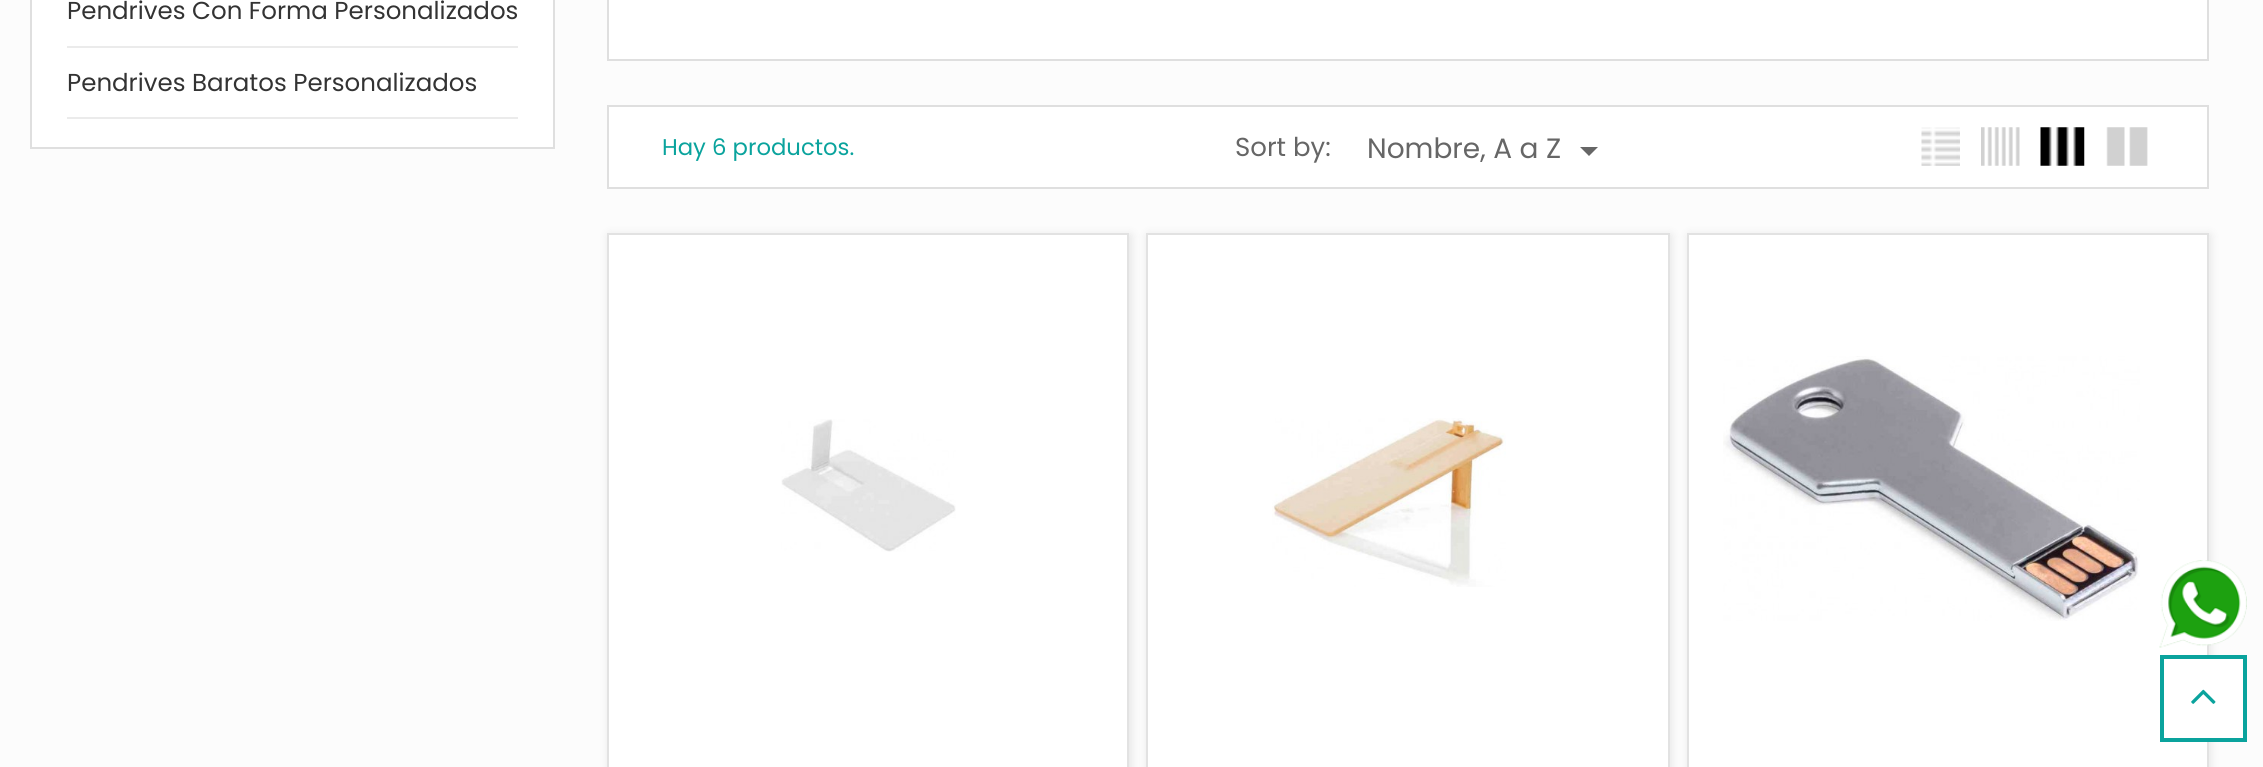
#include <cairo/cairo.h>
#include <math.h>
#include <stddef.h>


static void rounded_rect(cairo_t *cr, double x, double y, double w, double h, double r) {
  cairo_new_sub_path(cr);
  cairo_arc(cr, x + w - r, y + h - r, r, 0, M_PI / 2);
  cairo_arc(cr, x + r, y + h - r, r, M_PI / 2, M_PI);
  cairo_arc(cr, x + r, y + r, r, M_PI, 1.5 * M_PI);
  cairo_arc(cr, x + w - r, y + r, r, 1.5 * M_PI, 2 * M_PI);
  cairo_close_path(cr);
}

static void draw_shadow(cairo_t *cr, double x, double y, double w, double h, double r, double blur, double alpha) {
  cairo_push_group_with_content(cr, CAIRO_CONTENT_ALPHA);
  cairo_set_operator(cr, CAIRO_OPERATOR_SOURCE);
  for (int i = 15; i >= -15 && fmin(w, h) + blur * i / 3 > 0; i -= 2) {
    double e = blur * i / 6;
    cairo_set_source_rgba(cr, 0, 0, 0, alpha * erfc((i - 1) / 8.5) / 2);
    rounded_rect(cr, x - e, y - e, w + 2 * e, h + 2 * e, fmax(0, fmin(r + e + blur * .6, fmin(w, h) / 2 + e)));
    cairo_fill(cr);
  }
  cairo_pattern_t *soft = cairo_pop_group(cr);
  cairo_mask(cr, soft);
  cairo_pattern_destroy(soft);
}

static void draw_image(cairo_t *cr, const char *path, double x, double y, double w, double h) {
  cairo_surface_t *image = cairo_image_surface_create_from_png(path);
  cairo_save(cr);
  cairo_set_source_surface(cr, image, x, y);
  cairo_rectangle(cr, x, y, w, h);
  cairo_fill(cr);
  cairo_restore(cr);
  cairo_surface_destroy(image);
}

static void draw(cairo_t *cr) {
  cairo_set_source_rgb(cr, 252 / 255.0, 252 / 255.0, 252 / 255.0);
  cairo_paint(cr);
  cairo_set_source_rgb(cr, 1, 1, 1);
  cairo_rectangle(cr, 31, -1, 523, 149);
  cairo_fill_preserve(cr);
  cairo_set_source_rgb(cr, 223 / 255.0, 223 / 255.0, 223 / 255.0);
  cairo_stroke(cr);
  cairo_set_source_rgb(cr, 235 / 255.0, 235 / 255.0, 235 / 255.0);
  cairo_rectangle(cr, 67, 46, 451, 2);
  cairo_fill(cr);
  cairo_rectangle(cr, 67, 117, 451, 2);
  cairo_fill(cr);
  cairo_set_source_rgb(cr, 1, 1, 1);
  cairo_rectangle(cr, 608, -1, 1600, 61);
  cairo_fill_preserve(cr);
  cairo_set_source_rgb(cr, 223 / 255.0, 223 / 255.0, 223 / 255.0);
  cairo_stroke(cr);
  cairo_set_source_rgb(cr, 1, 1, 1);
  cairo_rectangle(cr, 608, 106, 1600, 82);
  cairo_fill_preserve(cr);
  cairo_set_source_rgb(cr, 223 / 255.0, 223 / 255.0, 223 / 255.0);
  cairo_stroke(cr);
  cairo_set_source_rgb(cr, 102 / 255.0, 102 / 255.0, 102 / 255.0);
  cairo_new_path(cr);
  cairo_move_to(cr, 1580, 147);
  cairo_line_to(cr, 1598, 147);
  cairo_line_to(cr, 1589, 156);
  cairo_close_path(cr);
  cairo_fill(cr);
  draw_image(cr, "images/1.png", 1921, 127, 39, 39);
  draw_image(cr, "images/2.png", 1981, 127, 39, 39);
  draw_image(cr, "images/3.png", 2040, 127, 45, 39);
  draw_image(cr, "images/4.png", 2106, 127, 42, 39);
  cairo_set_source_rgb(cr, 0, 0, 0);
  draw_shadow(cr, 609, 235, 522, 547, 0, 5, 0.1);
  cairo_set_source_rgb(cr, 1, 1, 1);
  cairo_rectangle(cr, 608, 234, 520, 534);
  cairo_fill_preserve(cr);
  cairo_set_source_rgb(cr, 226 / 255.0, 226 / 255.0, 226 / 255.0);
  cairo_stroke(cr);
  draw_image(cr, "images/5.png", 781, 419, 175, 133);
  cairo_set_source_rgb(cr, 0, 0, 0);
  draw_shadow(cr, 1148, 235, 523, 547, 0, 5, 0.1);
  cairo_set_source_rgb(cr, 1, 1, 1);
  cairo_rectangle(cr, 1147, 234, 522, 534);
  cairo_fill_preserve(cr);
  cairo_set_source_rgb(cr, 226 / 255.0, 226 / 255.0, 226 / 255.0);
  cairo_stroke(cr);
  draw_image(cr, "images/6.png", 1272, 418, 234, 169);
  cairo_set_source_rgb(cr, 0, 0, 0);
  draw_shadow(cr, 1689, 235, 521, 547, 0, 5, 0.1);
  cairo_set_source_rgb(cr, 1, 1, 1);
  cairo_rectangle(cr, 1688, 234, 520, 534);
  cairo_fill_preserve(cr);
  cairo_set_source_rgb(cr, 226 / 255.0, 226 / 255.0, 226 / 255.0);
  cairo_stroke(cr);
  draw_image(cr, "images/7.png", 1723, 356, 417, 265);
  draw_image(cr, "images/8.png", 2159, 560, 88, 88);
  cairo_set_source_rgb(cr, 1, 1, 1);
  cairo_rectangle(cr, 2207, 659, 36, 79);
  cairo_fill(cr);
  cairo_rectangle(cr, 2162, 657, 83, 83);
  cairo_set_source_rgb(cr, 10 / 255.0, 163 / 255.0, 157 / 255.0);
  cairo_set_line_width(cr, 4);
  cairo_stroke(cr);
  draw_image(cr, "images/9.png", 2191, 689, 25, 15);
  cairo_select_font_face(cr, "Poppins", CAIRO_FONT_SLANT_NORMAL, CAIRO_FONT_WEIGHT_NORMAL);
  cairo_set_font_size(cr, 24.5);
  cairo_set_source_rgb(cr, 51 / 255.0, 51 / 255.0, 51 / 255.0);
  cairo_move_to(cr, 67, 19);
  cairo_show_text(cr, "Pendrives Con Forma Personalizados");
  cairo_move_to(cr, 67, 91);
  cairo_show_text(cr, "Pendrives Baratos Personalizados");
  cairo_set_font_size(cr, 22.75);
  cairo_set_source_rgb(cr, 10 / 255.0, 163 / 255.0, 157 / 255.0);
  cairo_move_to(cr, 662, 155);
  cairo_show_text(cr, "Hay 6 productos.");
  cairo_set_font_size(cr, 26);
  cairo_set_source_rgb(cr, 102 / 255.0, 102 / 255.0, 102 / 255.0);
  cairo_move_to(cr, 1235, 156);
  cairo_show_text(cr, "Sort by:");
  cairo_set_font_size(cr, 28);
  cairo_move_to(cr, 1367, 158);
  cairo_show_text(cr, "Nombre, A a Z");
}

int main(void) {
  cairo_surface_t *surface = cairo_image_surface_create(CAIRO_FORMAT_RGB24, 2263, 767);
  cairo_t *cr = cairo_create(surface);
  cairo_font_options_t *options = cairo_font_options_create();
  cairo_font_options_set_hint_metrics(options, CAIRO_HINT_METRICS_OFF);
  cairo_font_options_set_hint_style(options, CAIRO_HINT_STYLE_NONE);
  cairo_set_font_options(cr, options);
  cairo_set_miter_limit(cr, 4);
  draw(cr);
  cairo_surface_write_to_png(surface, "out.png");
  cairo_font_options_destroy(options);
  cairo_destroy(cr);
  cairo_surface_destroy(surface);
  return 0;
}
